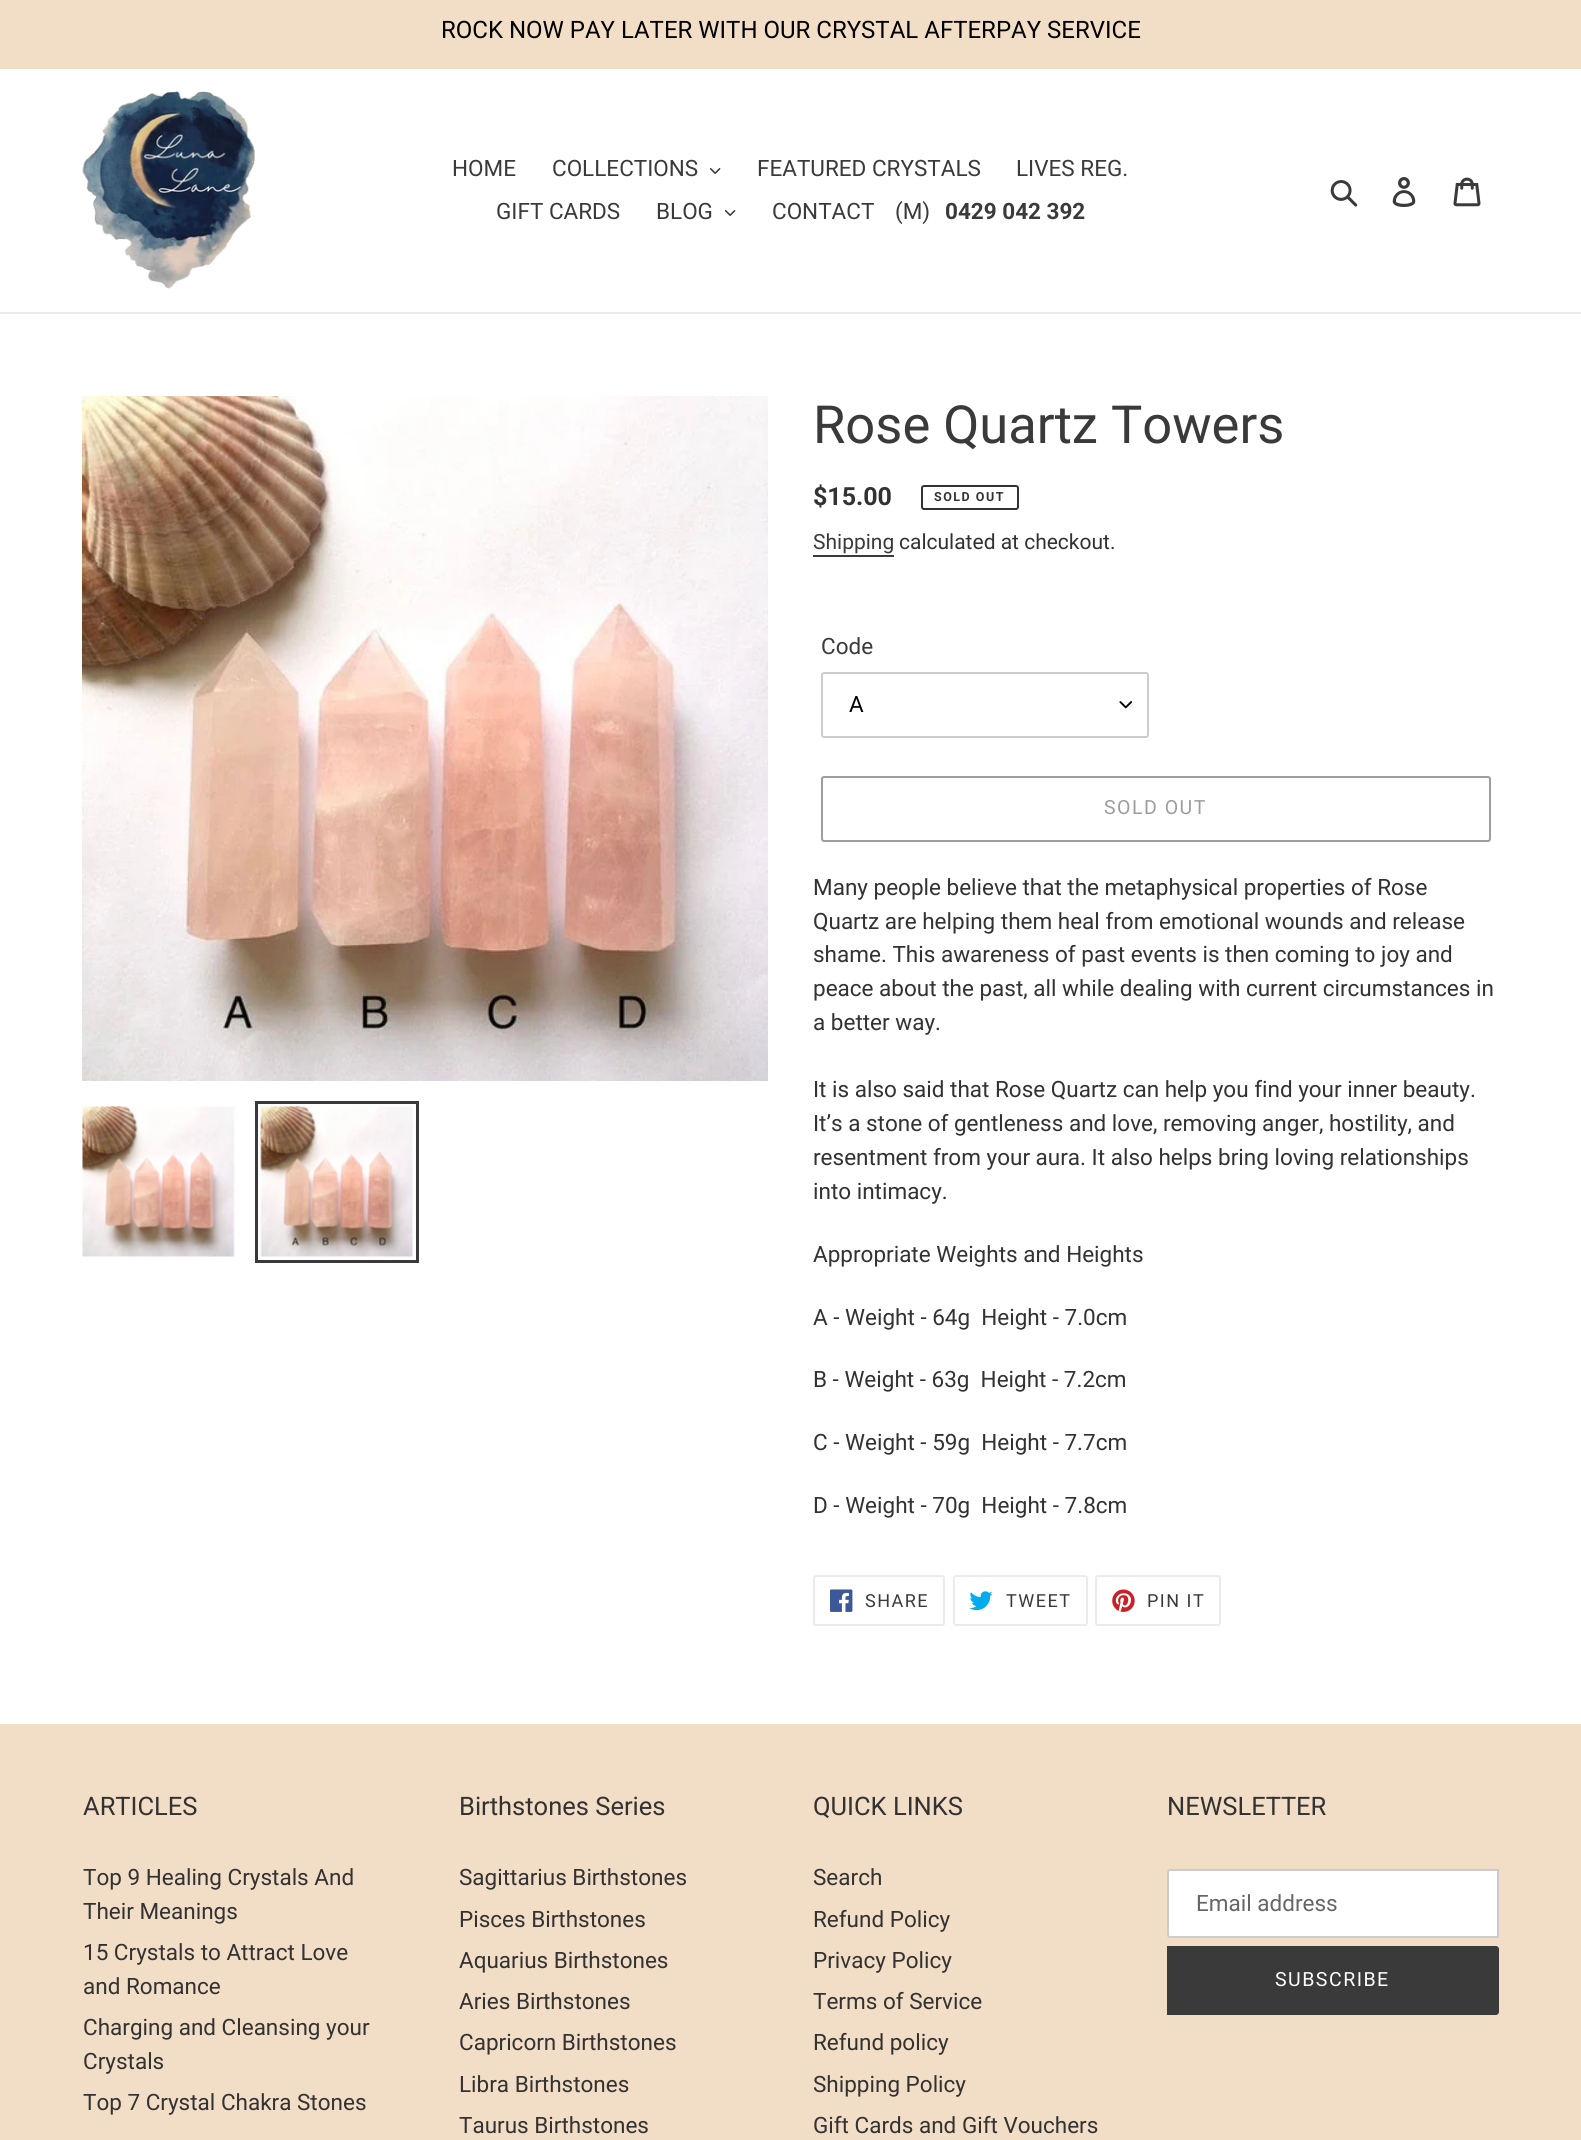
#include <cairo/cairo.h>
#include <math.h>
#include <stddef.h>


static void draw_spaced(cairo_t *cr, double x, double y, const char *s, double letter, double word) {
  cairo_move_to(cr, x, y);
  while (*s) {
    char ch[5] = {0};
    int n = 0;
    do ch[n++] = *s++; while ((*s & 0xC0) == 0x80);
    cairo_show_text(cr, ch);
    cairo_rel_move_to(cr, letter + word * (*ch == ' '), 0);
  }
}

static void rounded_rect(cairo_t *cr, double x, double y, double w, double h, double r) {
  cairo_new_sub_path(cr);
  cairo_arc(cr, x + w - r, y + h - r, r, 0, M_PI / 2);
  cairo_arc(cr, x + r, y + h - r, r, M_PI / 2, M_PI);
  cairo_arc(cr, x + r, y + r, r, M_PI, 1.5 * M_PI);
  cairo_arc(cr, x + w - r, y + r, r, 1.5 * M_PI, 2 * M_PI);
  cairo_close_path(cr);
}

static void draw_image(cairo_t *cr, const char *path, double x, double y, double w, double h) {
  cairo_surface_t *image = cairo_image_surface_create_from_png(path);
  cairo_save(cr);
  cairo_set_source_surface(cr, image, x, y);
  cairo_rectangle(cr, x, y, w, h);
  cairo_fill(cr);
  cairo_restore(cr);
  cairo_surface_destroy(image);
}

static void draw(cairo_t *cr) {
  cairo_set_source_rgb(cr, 1, 1, 1);
  cairo_paint(cr);
  cairo_set_source_rgb(cr, 242 / 255.0, 222 / 255.0, 198 / 255.0);
  cairo_rectangle(cr, 0, 0, 1581, 69);
  cairo_fill(cr);
  cairo_set_source_rgb(cr, 235 / 255.0, 235 / 255.0, 235 / 255.0);
  cairo_rectangle(cr, 0, 312, 1581, 2);
  cairo_fill(cr);
  draw_image(cr, "images/1.png", 82, 91, 173, 198);
  draw_image(cr, "images/2.png", 710, 168, 11, 6);
  draw_image(cr, "images/2.png", 725, 210, 11, 6);
  draw_image(cr, "images/3.png", 1330, 180, 28, 27);
  draw_image(cr, "images/4.png", 1392, 177, 24, 30);
  draw_image(cr, "images/5.png", 1453, 177, 28, 30);
  draw_image(cr, "images/6.png", 82, 396, 686, 685);
  draw_image(cr, "images/7.png", 82, 1106, 153, 151);
  cairo_rectangle(cr, 256.5, 1102.5, 161, 159);
  cairo_set_source_rgb(cr, 58 / 255.0, 58 / 255.0, 58 / 255.0);
  cairo_set_line_width(cr, 3);
  cairo_stroke(cr);
  draw_image(cr, "images/8.png", 260, 1106, 153, 151);
  rounded_rect(cr, 922, 486, 96, 23, 2);
  cairo_set_source_rgb(cr, 51 / 255.0, 50 / 255.0, 50 / 255.0);
  cairo_set_line_width(cr, 2);
  cairo_stroke(cr);
  cairo_set_source_rgb(cr, 58 / 255.0, 58 / 255.0, 58 / 255.0);
  cairo_rectangle(cr, 813, 555, 81, 2);
  cairo_fill(cr);
  draw_image(cr, "images/9.png", 1119, 701, 13, 8);
  rounded_rect(cr, 822, 673, 326, 64, 2);
  cairo_set_source_rgb(cr, 204 / 255.0, 204 / 255.0, 204 / 255.0);
  cairo_stroke(cr);
  rounded_rect(cr, 822, 777, 668, 64, 2);
  cairo_set_source_rgb(cr, 157 / 255.0, 157 / 255.0, 157 / 255.0);
  cairo_stroke(cr);
  rounded_rect(cr, 814, 1576, 130, 49, 2);
  cairo_set_source_rgb(cr, 235 / 255.0, 235 / 255.0, 235 / 255.0);
  cairo_stroke(cr);
  draw_image(cr, "images/10.png", 830, 1589, 23, 23);
  rounded_rect(cr, 954, 1576, 133, 49, 2);
  cairo_stroke(cr);
  draw_image(cr, "images/11.png", 969, 1591, 24, 20);
  rounded_rect(cr, 1096, 1576, 124, 49, 2);
  cairo_stroke(cr);
  draw_image(cr, "images/12.png", 1112, 1589, 23, 23);
  cairo_set_source_rgb(cr, 242 / 255.0, 222 / 255.0, 198 / 255.0);
  cairo_rectangle(cr, 0, 1724, 1581, 416);
  cairo_fill(cr);
  cairo_set_source_rgb(cr, 1, 1, 1);
  cairo_new_path(cr);
  cairo_move_to(cr, 1170, 1870);
  cairo_line_to(cr, 1498, 1870);
  cairo_line_to(cr, 1498, 1937);
  cairo_line_to(cr, 1170, 1937);
  cairo_curve_to(cr, 1169, 1937, 1168, 1936, 1168, 1935);
  cairo_line_to(cr, 1168, 1872);
  cairo_curve_to(cr, 1168, 1871, 1169, 1870, 1170, 1870);
  cairo_close_path(cr);
  cairo_fill_preserve(cr);
  cairo_set_source_rgb(cr, 204 / 255.0, 204 / 255.0, 204 / 255.0);
  cairo_stroke(cr);
  cairo_set_source_rgb(cr, 58 / 255.0, 58 / 255.0, 58 / 255.0);
  cairo_new_path(cr);
  cairo_move_to(cr, 1167, 1946);
  cairo_line_to(cr, 1496, 1946);
  cairo_curve_to(cr, 1497.5, 1946, 1499, 1947.5, 1499, 1949);
  cairo_line_to(cr, 1499, 2012);
  cairo_curve_to(cr, 1499, 2013.5, 1497.5, 2015, 1496, 2015);
  cairo_line_to(cr, 1167, 2015);
  cairo_close_path(cr);
  cairo_fill(cr);
  cairo_select_font_face(cr, "Roboto", CAIRO_FONT_SLANT_NORMAL, CAIRO_FONT_WEIGHT_NORMAL);
  cairo_set_font_size(cr, 24);
  cairo_set_source_rgb(cr, 0, 0, 0);
  cairo_move_to(cr, 441, 38);
  cairo_show_text(cr, "ROCK NOW PAY LATER WITH OUR CRYSTAL AFTERPAY SERVICE");
  cairo_set_font_size(cr, 22.5);
  cairo_set_source_rgb(cr, 58 / 255.0, 58 / 255.0, 58 / 255.0);
  cairo_move_to(cr, 452, 176);
  cairo_show_text(cr, "HOME");
  cairo_move_to(cr, 552, 176);
  cairo_show_text(cr, "COLLECTIONS");
  cairo_move_to(cr, 757, 176);
  cairo_show_text(cr, "FEATURED CRYSTALS");
  cairo_move_to(cr, 1016, 176);
  cairo_show_text(cr, "LIVES REG.");
  cairo_move_to(cr, 496, 219);
  cairo_show_text(cr, "GIFT CARDS");
  cairo_move_to(cr, 656, 219);
  cairo_show_text(cr, "BLOG");
  cairo_move_to(cr, 772, 219);
  cairo_show_text(cr, "CONTACT");
  cairo_move_to(cr, 895, 219);
  cairo_show_text(cr, "(M)");
  cairo_select_font_face(cr, "Roboto", CAIRO_FONT_SLANT_NORMAL, CAIRO_FONT_WEIGHT_BOLD);
  cairo_move_to(cr, 945, 219);
  cairo_show_text(cr, "0429 042 392");
  cairo_select_font_face(cr, "Roboto", CAIRO_FONT_SLANT_NORMAL, CAIRO_FONT_WEIGHT_NORMAL);
  cairo_set_font_size(cr, 52.5);
  cairo_move_to(cr, 813, 443);
  cairo_show_text(cr, "Rose Quartz Towers");
  cairo_select_font_face(cr, "Roboto", CAIRO_FONT_SLANT_NORMAL, CAIRO_FONT_WEIGHT_BOLD);
  cairo_set_font_size(cr, 25);
  cairo_set_source_rgb(cr, 51 / 255.0, 50 / 255.0, 50 / 255.0);
  cairo_move_to(cr, 813, 505);
  cairo_show_text(cr, "$15.00");
  cairo_set_font_size(cr, 12.5);
  draw_spaced(cr, 934, 501, "SOLD OUT", 1.5, 0);
  cairo_select_font_face(cr, "Roboto", CAIRO_FONT_SLANT_NORMAL, CAIRO_FONT_WEIGHT_NORMAL);
  cairo_set_font_size(cr, 21);
  cairo_set_source_rgb(cr, 58 / 255.0, 58 / 255.0, 58 / 255.0);
  cairo_move_to(cr, 813, 549);
  cairo_show_text(cr, "Shipping");
  cairo_set_source_rgb(cr, 51 / 255.0, 50 / 255.0, 50 / 255.0);
  cairo_move_to(cr, 899, 549);
  cairo_show_text(cr, "calculated at checkout.");
  cairo_set_font_size(cr, 22.5);
  cairo_set_source_rgb(cr, 58 / 255.0, 58 / 255.0, 58 / 255.0);
  cairo_move_to(cr, 821, 654);
  cairo_show_text(cr, "Code");
  cairo_set_source_rgb(cr, 0, 0, 0);
  cairo_move_to(cr, 849, 712);
  cairo_show_text(cr, "A");
  cairo_set_font_size(cr, 19.5);
  cairo_set_source_rgb(cr, 157 / 255.0, 157 / 255.0, 157 / 255.0);
  draw_spaced(cr, 1104, 814, "SOLD OUT", 1.5, 0);
  cairo_set_font_size(cr, 22.5);
  cairo_set_source_rgb(cr, 51 / 255.0, 50 / 255.0, 50 / 255.0);
  cairo_move_to(cr, 813, 895);
  cairo_show_text(cr, "Many people believe that the metaphysical properties of Rose");
  cairo_move_to(cr, 813, 929);
  cairo_show_text(cr, "Quartz are helping them heal from emotional wounds and release");
  cairo_move_to(cr, 813, 962);
  cairo_show_text(cr, "shame. This awareness of past events is then coming to joy and");
  cairo_move_to(cr, 813, 996);
  cairo_show_text(cr, "peace about the past, all while dealing with current circumstances in");
  cairo_move_to(cr, 813, 1030);
  cairo_show_text(cr, "a better way.");
  cairo_move_to(cr, 813, 1097);
  cairo_show_text(cr, "It is also said that Rose Quartz can help you find your inner beauty.");
  cairo_move_to(cr, 813, 1131);
  cairo_show_text(cr, "It’s a stone of gentleness and love, removing anger, hostility, and");
  cairo_move_to(cr, 813, 1165);
  cairo_show_text(cr, "resentment from your aura. It also helps bring loving relationships");
  cairo_move_to(cr, 813, 1199);
  cairo_show_text(cr, "into intimacy.");
  cairo_move_to(cr, 813, 1262);
  cairo_show_text(cr, "Appropriate Weights and Heights");
  cairo_move_to(cr, 813, 1325);
  cairo_show_text(cr, "A - Weight - 64g  Height - 7.0cm");
  cairo_move_to(cr, 813, 1387);
  cairo_show_text(cr, "B - Weight - 63g  Height - 7.2cm");
  cairo_move_to(cr, 813, 1450);
  cairo_show_text(cr, "C - Weight - 59g  Height - 7.7cm");
  cairo_move_to(cr, 813, 1513);
  cairo_show_text(cr, "D - Weight - 70g  Height - 7.8cm");
  cairo_set_font_size(cr, 18);
  cairo_set_source_rgb(cr, 58 / 255.0, 58 / 255.0, 58 / 255.0);
  draw_spaced(cr, 865, 1607, "SHARE", 1.5, 0);
  draw_spaced(cr, 1006, 1607, "TWEET", 1.5, 0);
  draw_spaced(cr, 1147, 1607, "PIN IT", 1.5, 0);
  cairo_set_font_size(cr, 25.5);
  cairo_set_source_rgb(cr, 51 / 255.0, 50 / 255.0, 50 / 255.0);
  cairo_move_to(cr, 83, 1815);
  cairo_show_text(cr, "ARTICLES");
  cairo_set_font_size(cr, 22.5);
  cairo_move_to(cr, 83, 1885);
  cairo_show_text(cr, "Top 9 Healing Crystals And");
  cairo_move_to(cr, 83, 1919);
  cairo_show_text(cr, "Their Meanings");
  cairo_move_to(cr, 83, 1960);
  cairo_show_text(cr, "15 Crystals to Attract Love");
  cairo_move_to(cr, 83, 1994);
  cairo_show_text(cr, "and Romance");
  cairo_move_to(cr, 83, 2035);
  cairo_show_text(cr, "Charging and Cleansing your");
  cairo_move_to(cr, 83, 2069);
  cairo_show_text(cr, "Crystals");
  cairo_move_to(cr, 83, 2110);
  cairo_show_text(cr, "Top 7 Crystal Chakra Stones");
  cairo_set_font_size(cr, 25.5);
  cairo_move_to(cr, 459, 1815);
  cairo_show_text(cr, "Birthstones Series");
  cairo_set_font_size(cr, 22.5);
  cairo_move_to(cr, 459, 1885);
  cairo_show_text(cr, "Sagittarius Birthstones");
  cairo_move_to(cr, 459, 1927);
  cairo_show_text(cr, "Pisces Birthstones");
  cairo_move_to(cr, 459, 1968);
  cairo_show_text(cr, "Aquarius Birthstones");
  cairo_move_to(cr, 459, 2009);
  cairo_show_text(cr, "Aries Birthstones");
  cairo_move_to(cr, 459, 2050);
  cairo_show_text(cr, "Capricorn Birthstones");
  cairo_move_to(cr, 459, 2092);
  cairo_show_text(cr, "Libra Birthstones");
  cairo_move_to(cr, 459, 2133);
  cairo_show_text(cr, "Taurus Birthstones");
  cairo_set_font_size(cr, 25.5);
  cairo_move_to(cr, 813, 1815);
  cairo_show_text(cr, "QUICK LINKS");
  cairo_set_font_size(cr, 22.5);
  cairo_move_to(cr, 813, 1885);
  cairo_show_text(cr, "Search");
  cairo_move_to(cr, 813, 1927);
  cairo_show_text(cr, "Refund Policy");
  cairo_move_to(cr, 813, 1968);
  cairo_show_text(cr, "Privacy Policy");
  cairo_move_to(cr, 813, 2009);
  cairo_show_text(cr, "Terms of Service");
  cairo_move_to(cr, 813, 2050);
  cairo_show_text(cr, "Refund policy");
  cairo_move_to(cr, 813, 2092);
  cairo_show_text(cr, "Shipping Policy");
  cairo_move_to(cr, 813, 2133);
  cairo_show_text(cr, "Gift Cards and Gift Vouchers");
  cairo_set_font_size(cr, 25.5);
  cairo_move_to(cr, 1167, 1815);
  cairo_show_text(cr, "NEWSLETTER");
  cairo_set_font_size(cr, 22.5);
  cairo_set_source_rgb(cr, 102 / 255.0, 102 / 255.0, 102 / 255.0);
  cairo_move_to(cr, 1196, 1911);
  cairo_show_text(cr, "Email address");
  cairo_set_font_size(cr, 19.5);
  cairo_set_source_rgb(cr, 1, 1, 1);
  draw_spaced(cr, 1275, 1986, "SUBSCRIBE", 1.5, 0);
}

int main(void) {
  cairo_surface_t *surface = cairo_image_surface_create(CAIRO_FORMAT_RGB24, 1581, 2140);
  cairo_t *cr = cairo_create(surface);
  cairo_font_options_t *options = cairo_font_options_create();
  cairo_font_options_set_hint_metrics(options, CAIRO_HINT_METRICS_OFF);
  cairo_font_options_set_hint_style(options, CAIRO_HINT_STYLE_NONE);
  cairo_set_font_options(cr, options);
  cairo_set_miter_limit(cr, 4);
  draw(cr);
  cairo_surface_write_to_png(surface, "out.png");
  cairo_font_options_destroy(options);
  cairo_destroy(cr);
  cairo_surface_destroy(surface);
  return 0;
}
